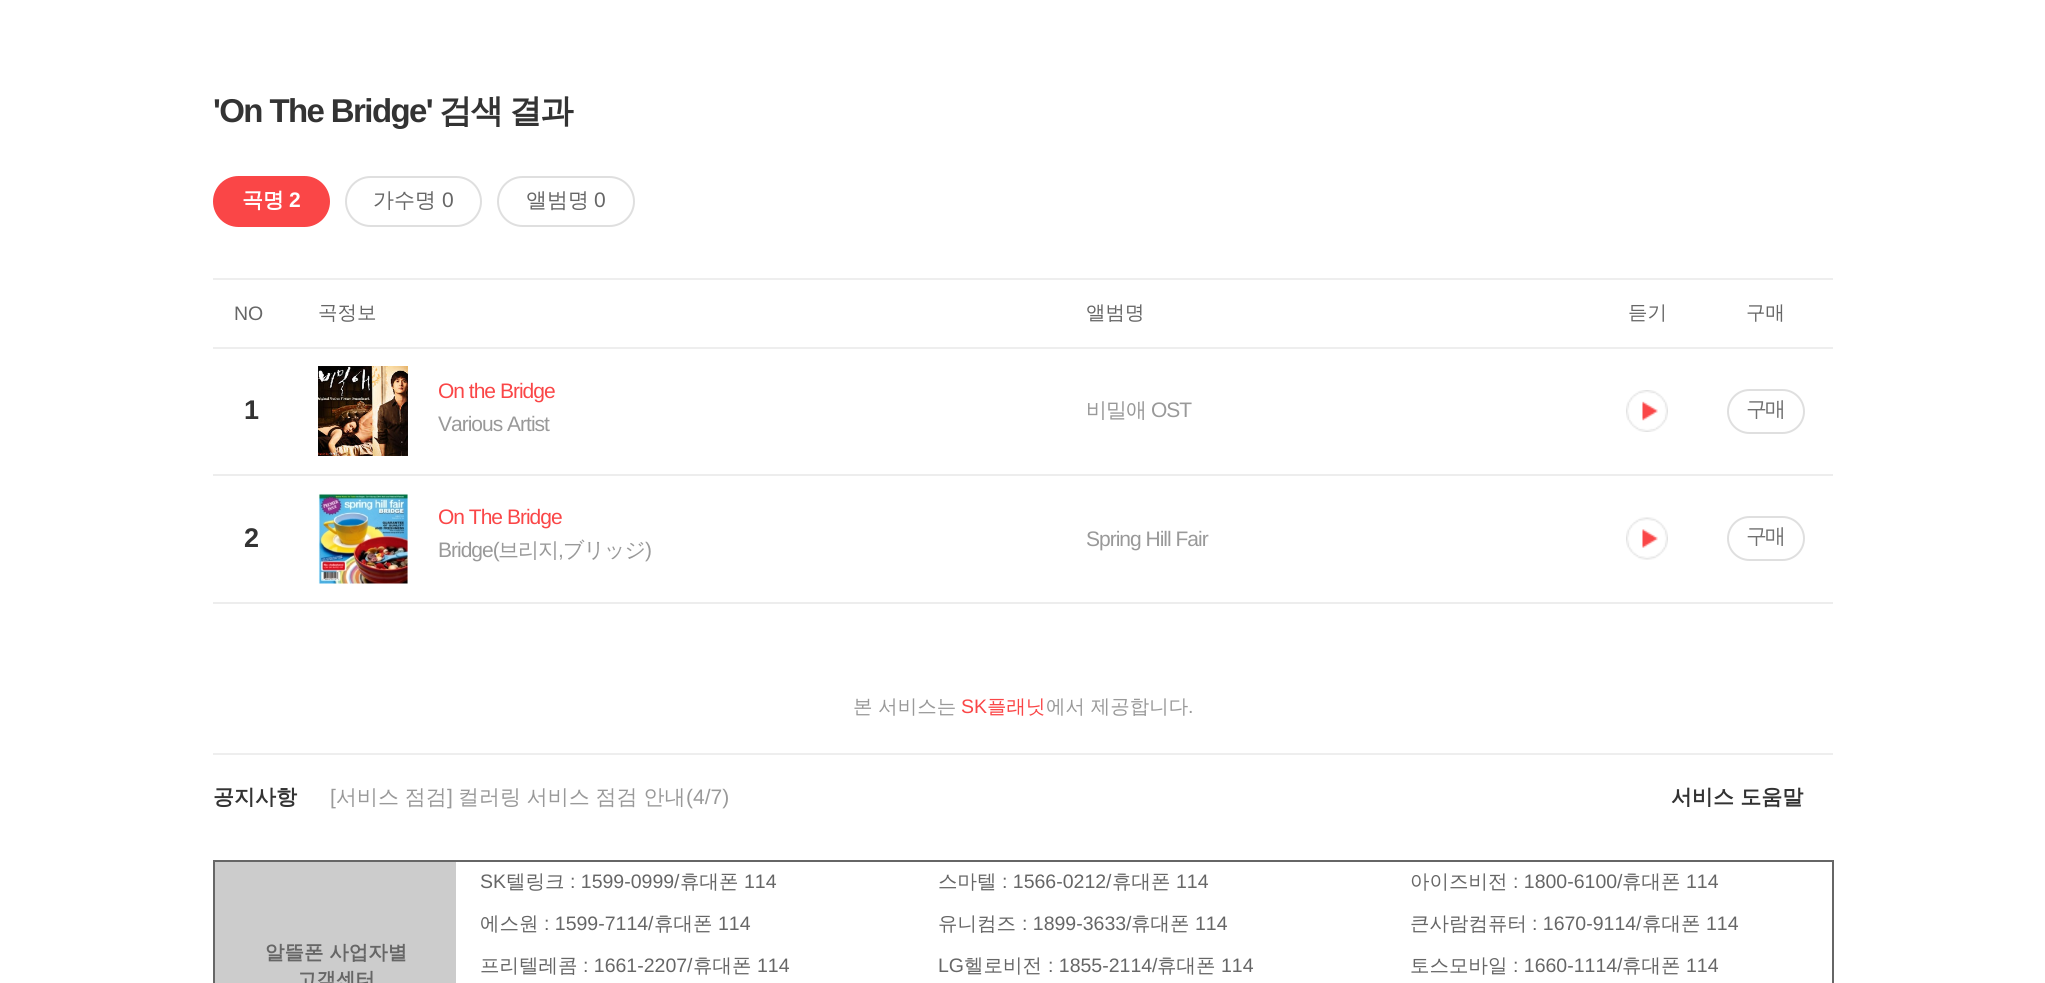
#include <cairo/cairo.h>
#include <math.h>
#include <stddef.h>


static void draw_spaced(cairo_t *cr, double x, double y, const char *s, double letter, double word) {
  cairo_move_to(cr, x, y);
  while (*s) {
    char ch[5] = {0};
    int n = 0;
    do ch[n++] = *s++; while ((*s & 0xC0) == 0x80);
    cairo_show_text(cr, ch);
    cairo_rel_move_to(cr, letter + word * (*ch == ' '), 0);
  }
}

static void rounded_rect(cairo_t *cr, double x, double y, double w, double h, double r) {
  cairo_new_sub_path(cr);
  cairo_arc(cr, x + w - r, y + h - r, r, 0, M_PI / 2);
  cairo_arc(cr, x + r, y + h - r, r, M_PI / 2, M_PI);
  cairo_arc(cr, x + r, y + r, r, M_PI, 1.5 * M_PI);
  cairo_arc(cr, x + w - r, y + r, r, 1.5 * M_PI, 2 * M_PI);
  cairo_close_path(cr);
}

static void draw_image(cairo_t *cr, const char *path, double x, double y, double w, double h) {
  cairo_surface_t *image = cairo_image_surface_create_from_png(path);
  cairo_save(cr);
  cairo_set_source_surface(cr, image, x, y);
  cairo_rectangle(cr, x, y, w, h);
  cairo_fill(cr);
  cairo_restore(cr);
  cairo_surface_destroy(image);
}

static void draw(cairo_t *cr) {
  cairo_set_source_rgb(cr, 1, 1, 1);
  cairo_paint(cr);
  cairo_set_source_rgb(cr, 250 / 255.0, 70 / 255.0, 71 / 255.0);
  rounded_rect(cr, 214, 177, 115, 49, 24.5);
  cairo_fill_preserve(cr);
  cairo_stroke(cr);
  rounded_rect(cr, 346, 177, 135, 49, 24.5);
  cairo_set_source_rgb(cr, 223 / 255.0, 223 / 255.0, 223 / 255.0);
  cairo_stroke(cr);
  rounded_rect(cr, 498, 177, 136, 49, 24.5);
  cairo_stroke(cr);
  cairo_set_source_rgb(cr, 238 / 255.0, 238 / 255.0, 238 / 255.0);
  cairo_rectangle(cr, 213, 278, 1620, 2);
  cairo_fill(cr);
  cairo_rectangle(cr, 213, 347, 1620, 2);
  cairo_fill(cr);
  cairo_set_source_rgb(cr, 237 / 255.0, 237 / 255.0, 237 / 255.0);
  cairo_rectangle(cr, 213, 474, 1620, 2);
  cairo_fill(cr);
  draw_image(cr, "images/1.png", 318, 366, 90, 90);
  draw_image(cr, "images/2.png", 1626, 390, 42, 42);
  rounded_rect(cr, 1728, 390, 76, 43, 21.5);
  cairo_set_source_rgb(cr, 223 / 255.0, 223 / 255.0, 223 / 255.0);
  cairo_stroke(cr);
  cairo_set_source_rgb(cr, 237 / 255.0, 237 / 255.0, 237 / 255.0);
  cairo_rectangle(cr, 213, 602, 1620, 2);
  cairo_fill(cr);
  draw_image(cr, "images/3.png", 318, 493, 90, 91);
  draw_image(cr, "images/4.png", 1626, 517, 42, 43);
  rounded_rect(cr, 1728, 517, 76, 43, 21.5);
  cairo_set_source_rgb(cr, 223 / 255.0, 223 / 255.0, 223 / 255.0);
  cairo_stroke(cr);
  cairo_set_source_rgb(cr, 238 / 255.0, 238 / 255.0, 238 / 255.0);
  cairo_rectangle(cr, 213, 753, 1620, 2);
  cairo_fill(cr);
  cairo_set_source_rgb(cr, 102 / 255.0, 102 / 255.0, 102 / 255.0);
  cairo_rectangle(cr, 213, 860, 1620, 2);
  cairo_fill(cr);
  cairo_rectangle(cr, 1832, 860, 2, 123);
  cairo_fill(cr);
  cairo_rectangle(cr, 213, 860, 2, 123);
  cairo_fill(cr);
  cairo_set_source_rgb(cr, 204 / 255.0, 204 / 255.0, 204 / 255.0);
  cairo_rectangle(cr, 215, 862, 241, 121);
  cairo_fill(cr);
  cairo_select_font_face(cr, "Liberation Sans", CAIRO_FONT_SLANT_NORMAL, CAIRO_FONT_WEIGHT_BOLD);
  cairo_set_font_size(cr, 33);
  cairo_set_source_rgb(cr, 51 / 255.0, 51 / 255.0, 51 / 255.0);
  draw_spaced(cr, 213, 122, "'On The Bridge'", -1.6, 0);
  cairo_select_font_face(cr, "WenQuanYi Zen Hei", CAIRO_FONT_SLANT_NORMAL, CAIRO_FONT_WEIGHT_BOLD);
  draw_spaced(cr, 439, 122, "검색", -1.6, 0);
  draw_spaced(cr, 509, 122, "결과", -1.6, 0);
  cairo_set_font_size(cr, 21);
  cairo_set_source_rgb(cr, 1, 1, 1);
  cairo_move_to(cr, 242, 207);
  cairo_show_text(cr, "곡명");
  cairo_select_font_face(cr, "Liberation Sans", CAIRO_FONT_SLANT_NORMAL, CAIRO_FONT_WEIGHT_BOLD);
  cairo_move_to(cr, 289, 207);
  cairo_show_text(cr, "2");
  cairo_select_font_face(cr, "WenQuanYi Zen Hei Medium", CAIRO_FONT_SLANT_NORMAL, CAIRO_FONT_WEIGHT_NORMAL);
  cairo_set_source_rgb(cr, 102 / 255.0, 102 / 255.0, 102 / 255.0);
  cairo_move_to(cr, 373, 207);
  cairo_show_text(cr, "가수명");
  cairo_select_font_face(cr, "Liberation Sans", CAIRO_FONT_SLANT_NORMAL, CAIRO_FONT_WEIGHT_NORMAL);
  cairo_move_to(cr, 442, 207);
  cairo_show_text(cr, "0");
  cairo_select_font_face(cr, "WenQuanYi Zen Hei Medium", CAIRO_FONT_SLANT_NORMAL, CAIRO_FONT_WEIGHT_NORMAL);
  cairo_move_to(cr, 526, 207);
  cairo_show_text(cr, "앨범명");
  cairo_select_font_face(cr, "Liberation Sans", CAIRO_FONT_SLANT_NORMAL, CAIRO_FONT_WEIGHT_NORMAL);
  cairo_move_to(cr, 594, 207);
  cairo_show_text(cr, "0");
  cairo_set_font_size(cr, 19.5);
  cairo_move_to(cr, 234, 320);
  cairo_show_text(cr, "NO");
  cairo_select_font_face(cr, "WenQuanYi Zen Hei Medium", CAIRO_FONT_SLANT_NORMAL, CAIRO_FONT_WEIGHT_NORMAL);
  cairo_move_to(cr, 318, 319);
  cairo_show_text(cr, "곡정보");
  cairo_move_to(cr, 1086, 319);
  cairo_show_text(cr, "앨범명");
  cairo_move_to(cr, 1628, 319);
  cairo_show_text(cr, "듣기");
  cairo_move_to(cr, 1746, 319);
  cairo_show_text(cr, "구매");
  cairo_select_font_face(cr, "Liberation Sans", CAIRO_FONT_SLANT_NORMAL, CAIRO_FONT_WEIGHT_BOLD);
  cairo_set_font_size(cr, 27);
  cairo_set_source_rgb(cr, 51 / 255.0, 51 / 255.0, 51 / 255.0);
  draw_spaced(cr, 244, 419, "1", -2, 0);
  cairo_select_font_face(cr, "Liberation Sans", CAIRO_FONT_SLANT_NORMAL, CAIRO_FONT_WEIGHT_NORMAL);
  cairo_set_font_size(cr, 21);
  cairo_set_source_rgb(cr, 250 / 255.0, 70 / 255.0, 71 / 255.0);
  draw_spaced(cr, 438, 398, "On the Bridge", -1, 0);
  cairo_set_source_rgb(cr, 153 / 255.0, 153 / 255.0, 153 / 255.0);
  draw_spaced(cr, 438, 431, "Various Artist", -1, 0);
  cairo_select_font_face(cr, "WenQuanYi Zen Hei Medium", CAIRO_FONT_SLANT_NORMAL, CAIRO_FONT_WEIGHT_NORMAL);
  draw_spaced(cr, 1086, 417, "비밀애", -1, 0);
  cairo_select_font_face(cr, "Liberation Sans", CAIRO_FONT_SLANT_NORMAL, CAIRO_FONT_WEIGHT_NORMAL);
  draw_spaced(cr, 1151, 417, "OST", -1, 0);
  cairo_select_font_face(cr, "WenQuanYi Zen Hei Medium", CAIRO_FONT_SLANT_NORMAL, CAIRO_FONT_WEIGHT_NORMAL);
  cairo_set_source_rgb(cr, 112 / 255.0, 112 / 255.0, 112 / 255.0);
  draw_spaced(cr, 1746, 416, "구매", -2, 0);
  cairo_select_font_face(cr, "Liberation Sans", CAIRO_FONT_SLANT_NORMAL, CAIRO_FONT_WEIGHT_BOLD);
  cairo_set_font_size(cr, 27);
  cairo_set_source_rgb(cr, 51 / 255.0, 51 / 255.0, 51 / 255.0);
  draw_spaced(cr, 244, 547, "2", -2, 0);
  cairo_select_font_face(cr, "Liberation Sans", CAIRO_FONT_SLANT_NORMAL, CAIRO_FONT_WEIGHT_NORMAL);
  cairo_set_font_size(cr, 21);
  cairo_set_source_rgb(cr, 250 / 255.0, 70 / 255.0, 71 / 255.0);
  draw_spaced(cr, 438, 524, "On The Bridge", -1, 0);
  cairo_set_source_rgb(cr, 153 / 255.0, 153 / 255.0, 153 / 255.0);
  draw_spaced(cr, 438, 557, "Bridge(", -1, 0);
  cairo_select_font_face(cr, "WenQuanYi Zen Hei Medium", CAIRO_FONT_SLANT_NORMAL, CAIRO_FONT_WEIGHT_NORMAL);
  draw_spaced(cr, 498, 557, "브리지", -1, 0);
  cairo_select_font_face(cr, "Liberation Sans", CAIRO_FONT_SLANT_NORMAL, CAIRO_FONT_WEIGHT_NORMAL);
  draw_spaced(cr, 558, 557, ",", -1, 0);
  cairo_select_font_face(cr, "WenQuanYi Zen Hei Medium", CAIRO_FONT_SLANT_NORMAL, CAIRO_FONT_WEIGHT_NORMAL);
  draw_spaced(cr, 563, 557, "ブリッジ", -1, 0);
  cairo_select_font_face(cr, "Liberation Sans", CAIRO_FONT_SLANT_NORMAL, CAIRO_FONT_WEIGHT_NORMAL);
  draw_spaced(cr, 645, 557, ")", -1, 0);
  draw_spaced(cr, 1086, 546, "Spring Hill Fair", -1, 0);
  cairo_select_font_face(cr, "WenQuanYi Zen Hei Medium", CAIRO_FONT_SLANT_NORMAL, CAIRO_FONT_WEIGHT_NORMAL);
  cairo_set_source_rgb(cr, 112 / 255.0, 112 / 255.0, 112 / 255.0);
  draw_spaced(cr, 1746, 543, "구매", -2, 0);
  cairo_set_font_size(cr, 19.5);
  cairo_set_source_rgb(cr, 153 / 255.0, 153 / 255.0, 153 / 255.0);
  cairo_move_to(cr, 853, 713);
  cairo_show_text(cr, "본 서비스는");
  cairo_select_font_face(cr, "Liberation Sans", CAIRO_FONT_SLANT_NORMAL, CAIRO_FONT_WEIGHT_NORMAL);
  cairo_set_source_rgb(cr, 250 / 255.0, 70 / 255.0, 71 / 255.0);
  cairo_move_to(cr, 961, 713);
  cairo_show_text(cr, "SK");
  cairo_select_font_face(cr, "WenQuanYi Zen Hei Medium", CAIRO_FONT_SLANT_NORMAL, CAIRO_FONT_WEIGHT_NORMAL);
  cairo_move_to(cr, 987, 713);
  cairo_show_text(cr, "플래닛");
  cairo_set_source_rgb(cr, 153 / 255.0, 153 / 255.0, 153 / 255.0);
  cairo_move_to(cr, 1046, 713);
  cairo_show_text(cr, "에서 제공합니다");
  cairo_select_font_face(cr, "Liberation Sans", CAIRO_FONT_SLANT_NORMAL, CAIRO_FONT_WEIGHT_NORMAL);
  cairo_move_to(cr, 1188, 713);
  cairo_show_text(cr, ".");
  cairo_select_font_face(cr, "WenQuanYi Zen Hei", CAIRO_FONT_SLANT_NORMAL, CAIRO_FONT_WEIGHT_BOLD);
  cairo_set_font_size(cr, 21);
  cairo_set_source_rgb(cr, 51 / 255.0, 51 / 255.0, 51 / 255.0);
  cairo_move_to(cr, 213, 804);
  cairo_show_text(cr, "공지사항");
  cairo_select_font_face(cr, "Liberation Sans", CAIRO_FONT_SLANT_NORMAL, CAIRO_FONT_WEIGHT_NORMAL);
  cairo_set_source_rgb(cr, 153 / 255.0, 153 / 255.0, 153 / 255.0);
  cairo_move_to(cr, 330, 804);
  cairo_show_text(cr, "[");
  cairo_select_font_face(cr, "WenQuanYi Zen Hei Medium", CAIRO_FONT_SLANT_NORMAL, CAIRO_FONT_WEIGHT_NORMAL);
  draw_spaced(cr, 336, 804, "서비스 점검", 0, -0.5);
  cairo_select_font_face(cr, "Liberation Sans", CAIRO_FONT_SLANT_NORMAL, CAIRO_FONT_WEIGHT_NORMAL);
  cairo_move_to(cr, 447, 804);
  cairo_show_text(cr, "]");
  cairo_select_font_face(cr, "WenQuanYi Zen Hei Medium", CAIRO_FONT_SLANT_NORMAL, CAIRO_FONT_WEIGHT_NORMAL);
  draw_spaced(cr, 458, 804, "컬러링 서비스 점검 안내", 0, -0.5);
  cairo_select_font_face(cr, "Liberation Sans", CAIRO_FONT_SLANT_NORMAL, CAIRO_FONT_WEIGHT_NORMAL);
  cairo_move_to(cr, 686, 804);
  cairo_show_text(cr, "(4/7)");
  cairo_select_font_face(cr, "WenQuanYi Zen Hei", CAIRO_FONT_SLANT_NORMAL, CAIRO_FONT_WEIGHT_BOLD);
  cairo_set_source_rgb(cr, 51 / 255.0, 51 / 255.0, 51 / 255.0);
  cairo_move_to(cr, 1671, 804);
  cairo_show_text(cr, "서비스 도움말");
  cairo_select_font_face(cr, "Liberation Sans", CAIRO_FONT_SLANT_NORMAL, CAIRO_FONT_WEIGHT_NORMAL);
  cairo_set_font_size(cr, 19.5);
  cairo_set_source_rgb(cr, 102 / 255.0, 102 / 255.0, 102 / 255.0);
  cairo_move_to(cr, 480, 888);
  cairo_show_text(cr, "SK");
  cairo_select_font_face(cr, "WenQuanYi Zen Hei Medium", CAIRO_FONT_SLANT_NORMAL, CAIRO_FONT_WEIGHT_NORMAL);
  cairo_move_to(cr, 506, 888);
  cairo_show_text(cr, "텔링크");
  cairo_select_font_face(cr, "Liberation Sans", CAIRO_FONT_SLANT_NORMAL, CAIRO_FONT_WEIGHT_NORMAL);
  cairo_move_to(cr, 570, 888);
  cairo_show_text(cr, ": 1599-0999/");
  cairo_select_font_face(cr, "WenQuanYi Zen Hei Medium", CAIRO_FONT_SLANT_NORMAL, CAIRO_FONT_WEIGHT_NORMAL);
  cairo_move_to(cr, 680, 888);
  cairo_show_text(cr, "휴대폰");
  cairo_select_font_face(cr, "Liberation Sans", CAIRO_FONT_SLANT_NORMAL, CAIRO_FONT_WEIGHT_NORMAL);
  cairo_move_to(cr, 744, 888);
  cairo_show_text(cr, "114");
  cairo_select_font_face(cr, "WenQuanYi Zen Hei Medium", CAIRO_FONT_SLANT_NORMAL, CAIRO_FONT_WEIGHT_NORMAL);
  cairo_move_to(cr, 938, 888);
  cairo_show_text(cr, "스마텔");
  cairo_select_font_face(cr, "Liberation Sans", CAIRO_FONT_SLANT_NORMAL, CAIRO_FONT_WEIGHT_NORMAL);
  cairo_move_to(cr, 1002, 888);
  cairo_show_text(cr, ": 1566-0212/");
  cairo_select_font_face(cr, "WenQuanYi Zen Hei Medium", CAIRO_FONT_SLANT_NORMAL, CAIRO_FONT_WEIGHT_NORMAL);
  cairo_move_to(cr, 1112, 888);
  cairo_show_text(cr, "휴대폰");
  cairo_select_font_face(cr, "Liberation Sans", CAIRO_FONT_SLANT_NORMAL, CAIRO_FONT_WEIGHT_NORMAL);
  cairo_move_to(cr, 1176, 888);
  cairo_show_text(cr, "114");
  cairo_select_font_face(cr, "WenQuanYi Zen Hei Medium", CAIRO_FONT_SLANT_NORMAL, CAIRO_FONT_WEIGHT_NORMAL);
  cairo_move_to(cr, 1410, 888);
  cairo_show_text(cr, "아이즈비전");
  cairo_select_font_face(cr, "Liberation Sans", CAIRO_FONT_SLANT_NORMAL, CAIRO_FONT_WEIGHT_NORMAL);
  cairo_move_to(cr, 1513, 888);
  cairo_show_text(cr, ": 1800-6100/");
  cairo_select_font_face(cr, "WenQuanYi Zen Hei Medium", CAIRO_FONT_SLANT_NORMAL, CAIRO_FONT_WEIGHT_NORMAL);
  cairo_move_to(cr, 1622, 888);
  cairo_show_text(cr, "휴대폰");
  cairo_select_font_face(cr, "Liberation Sans", CAIRO_FONT_SLANT_NORMAL, CAIRO_FONT_WEIGHT_NORMAL);
  cairo_move_to(cr, 1686, 888);
  cairo_show_text(cr, "114");
  cairo_select_font_face(cr, "WenQuanYi Zen Hei", CAIRO_FONT_SLANT_NORMAL, CAIRO_FONT_WEIGHT_BOLD);
  cairo_move_to(cr, 265, 959);
  cairo_show_text(cr, "알뜰폰 사업자별");
  cairo_move_to(cr, 297, 986);
  cairo_show_text(cr, "고객센터");
  cairo_select_font_face(cr, "WenQuanYi Zen Hei Medium", CAIRO_FONT_SLANT_NORMAL, CAIRO_FONT_WEIGHT_NORMAL);
  cairo_move_to(cr, 480, 930);
  cairo_show_text(cr, "에스원");
  cairo_select_font_face(cr, "Liberation Sans", CAIRO_FONT_SLANT_NORMAL, CAIRO_FONT_WEIGHT_NORMAL);
  cairo_move_to(cr, 544, 930);
  cairo_show_text(cr, ": 1599-7114/");
  cairo_select_font_face(cr, "WenQuanYi Zen Hei Medium", CAIRO_FONT_SLANT_NORMAL, CAIRO_FONT_WEIGHT_NORMAL);
  cairo_move_to(cr, 654, 930);
  cairo_show_text(cr, "휴대폰");
  cairo_select_font_face(cr, "Liberation Sans", CAIRO_FONT_SLANT_NORMAL, CAIRO_FONT_WEIGHT_NORMAL);
  cairo_move_to(cr, 718, 930);
  cairo_show_text(cr, "114");
  cairo_select_font_face(cr, "WenQuanYi Zen Hei Medium", CAIRO_FONT_SLANT_NORMAL, CAIRO_FONT_WEIGHT_NORMAL);
  cairo_move_to(cr, 938, 930);
  cairo_show_text(cr, "유니컴즈");
  cairo_select_font_face(cr, "Liberation Sans", CAIRO_FONT_SLANT_NORMAL, CAIRO_FONT_WEIGHT_NORMAL);
  cairo_move_to(cr, 1022, 930);
  cairo_show_text(cr, ": 1899-3633/");
  cairo_select_font_face(cr, "WenQuanYi Zen Hei Medium", CAIRO_FONT_SLANT_NORMAL, CAIRO_FONT_WEIGHT_NORMAL);
  cairo_move_to(cr, 1131, 930);
  cairo_show_text(cr, "휴대폰");
  cairo_select_font_face(cr, "Liberation Sans", CAIRO_FONT_SLANT_NORMAL, CAIRO_FONT_WEIGHT_NORMAL);
  cairo_move_to(cr, 1195, 930);
  cairo_show_text(cr, "114");
  cairo_select_font_face(cr, "WenQuanYi Zen Hei Medium", CAIRO_FONT_SLANT_NORMAL, CAIRO_FONT_WEIGHT_NORMAL);
  cairo_move_to(cr, 1410, 930);
  cairo_show_text(cr, "큰사람컴퓨터");
  cairo_select_font_face(cr, "Liberation Sans", CAIRO_FONT_SLANT_NORMAL, CAIRO_FONT_WEIGHT_NORMAL);
  cairo_move_to(cr, 1532, 930);
  cairo_show_text(cr, ": 1670-9114/");
  cairo_select_font_face(cr, "WenQuanYi Zen Hei Medium", CAIRO_FONT_SLANT_NORMAL, CAIRO_FONT_WEIGHT_NORMAL);
  cairo_move_to(cr, 1642, 930);
  cairo_show_text(cr, "휴대폰");
  cairo_select_font_face(cr, "Liberation Sans", CAIRO_FONT_SLANT_NORMAL, CAIRO_FONT_WEIGHT_NORMAL);
  cairo_move_to(cr, 1706, 930);
  cairo_show_text(cr, "114");
  cairo_select_font_face(cr, "WenQuanYi Zen Hei Medium", CAIRO_FONT_SLANT_NORMAL, CAIRO_FONT_WEIGHT_NORMAL);
  cairo_move_to(cr, 480, 972);
  cairo_show_text(cr, "프리텔레콤");
  cairo_select_font_face(cr, "Liberation Sans", CAIRO_FONT_SLANT_NORMAL, CAIRO_FONT_WEIGHT_NORMAL);
  cairo_move_to(cr, 583, 972);
  cairo_show_text(cr, ": 1661-2207/");
  cairo_select_font_face(cr, "WenQuanYi Zen Hei Medium", CAIRO_FONT_SLANT_NORMAL, CAIRO_FONT_WEIGHT_NORMAL);
  cairo_move_to(cr, 693, 972);
  cairo_show_text(cr, "휴대폰");
  cairo_select_font_face(cr, "Liberation Sans", CAIRO_FONT_SLANT_NORMAL, CAIRO_FONT_WEIGHT_NORMAL);
  cairo_move_to(cr, 757, 972);
  cairo_show_text(cr, "114");
  cairo_move_to(cr, 938, 972);
  cairo_show_text(cr, "LG");
  cairo_select_font_face(cr, "WenQuanYi Zen Hei Medium", CAIRO_FONT_SLANT_NORMAL, CAIRO_FONT_WEIGHT_NORMAL);
  cairo_move_to(cr, 964, 972);
  cairo_show_text(cr, "헬로비전");
  cairo_select_font_face(cr, "Liberation Sans", CAIRO_FONT_SLANT_NORMAL, CAIRO_FONT_WEIGHT_NORMAL);
  cairo_move_to(cr, 1048, 972);
  cairo_show_text(cr, ": 1855-2114/");
  cairo_select_font_face(cr, "WenQuanYi Zen Hei Medium", CAIRO_FONT_SLANT_NORMAL, CAIRO_FONT_WEIGHT_NORMAL);
  cairo_move_to(cr, 1157, 972);
  cairo_show_text(cr, "휴대폰");
  cairo_select_font_face(cr, "Liberation Sans", CAIRO_FONT_SLANT_NORMAL, CAIRO_FONT_WEIGHT_NORMAL);
  cairo_move_to(cr, 1221, 972);
  cairo_show_text(cr, "114");
  cairo_select_font_face(cr, "WenQuanYi Zen Hei Medium", CAIRO_FONT_SLANT_NORMAL, CAIRO_FONT_WEIGHT_NORMAL);
  cairo_move_to(cr, 1410, 972);
  cairo_show_text(cr, "토스모바일");
  cairo_select_font_face(cr, "Liberation Sans", CAIRO_FONT_SLANT_NORMAL, CAIRO_FONT_WEIGHT_NORMAL);
  cairo_move_to(cr, 1513, 972);
  cairo_show_text(cr, ": 1660-1114/");
  cairo_select_font_face(cr, "WenQuanYi Zen Hei Medium", CAIRO_FONT_SLANT_NORMAL, CAIRO_FONT_WEIGHT_NORMAL);
  cairo_move_to(cr, 1622, 972);
  cairo_show_text(cr, "휴대폰");
  cairo_select_font_face(cr, "Liberation Sans", CAIRO_FONT_SLANT_NORMAL, CAIRO_FONT_WEIGHT_NORMAL);
  cairo_move_to(cr, 1686, 972);
  cairo_show_text(cr, "114");
}

int main(void) {
  cairo_surface_t *surface = cairo_image_surface_create(CAIRO_FORMAT_RGB24, 2045, 983);
  cairo_t *cr = cairo_create(surface);
  cairo_font_options_t *options = cairo_font_options_create();
  cairo_font_options_set_hint_metrics(options, CAIRO_HINT_METRICS_OFF);
  cairo_font_options_set_hint_style(options, CAIRO_HINT_STYLE_NONE);
  cairo_set_font_options(cr, options);
  cairo_set_miter_limit(cr, 4);
  draw(cr);
  cairo_surface_write_to_png(surface, "out.png");
  cairo_font_options_destroy(options);
  cairo_destroy(cr);
  cairo_surface_destroy(surface);
  return 0;
}
